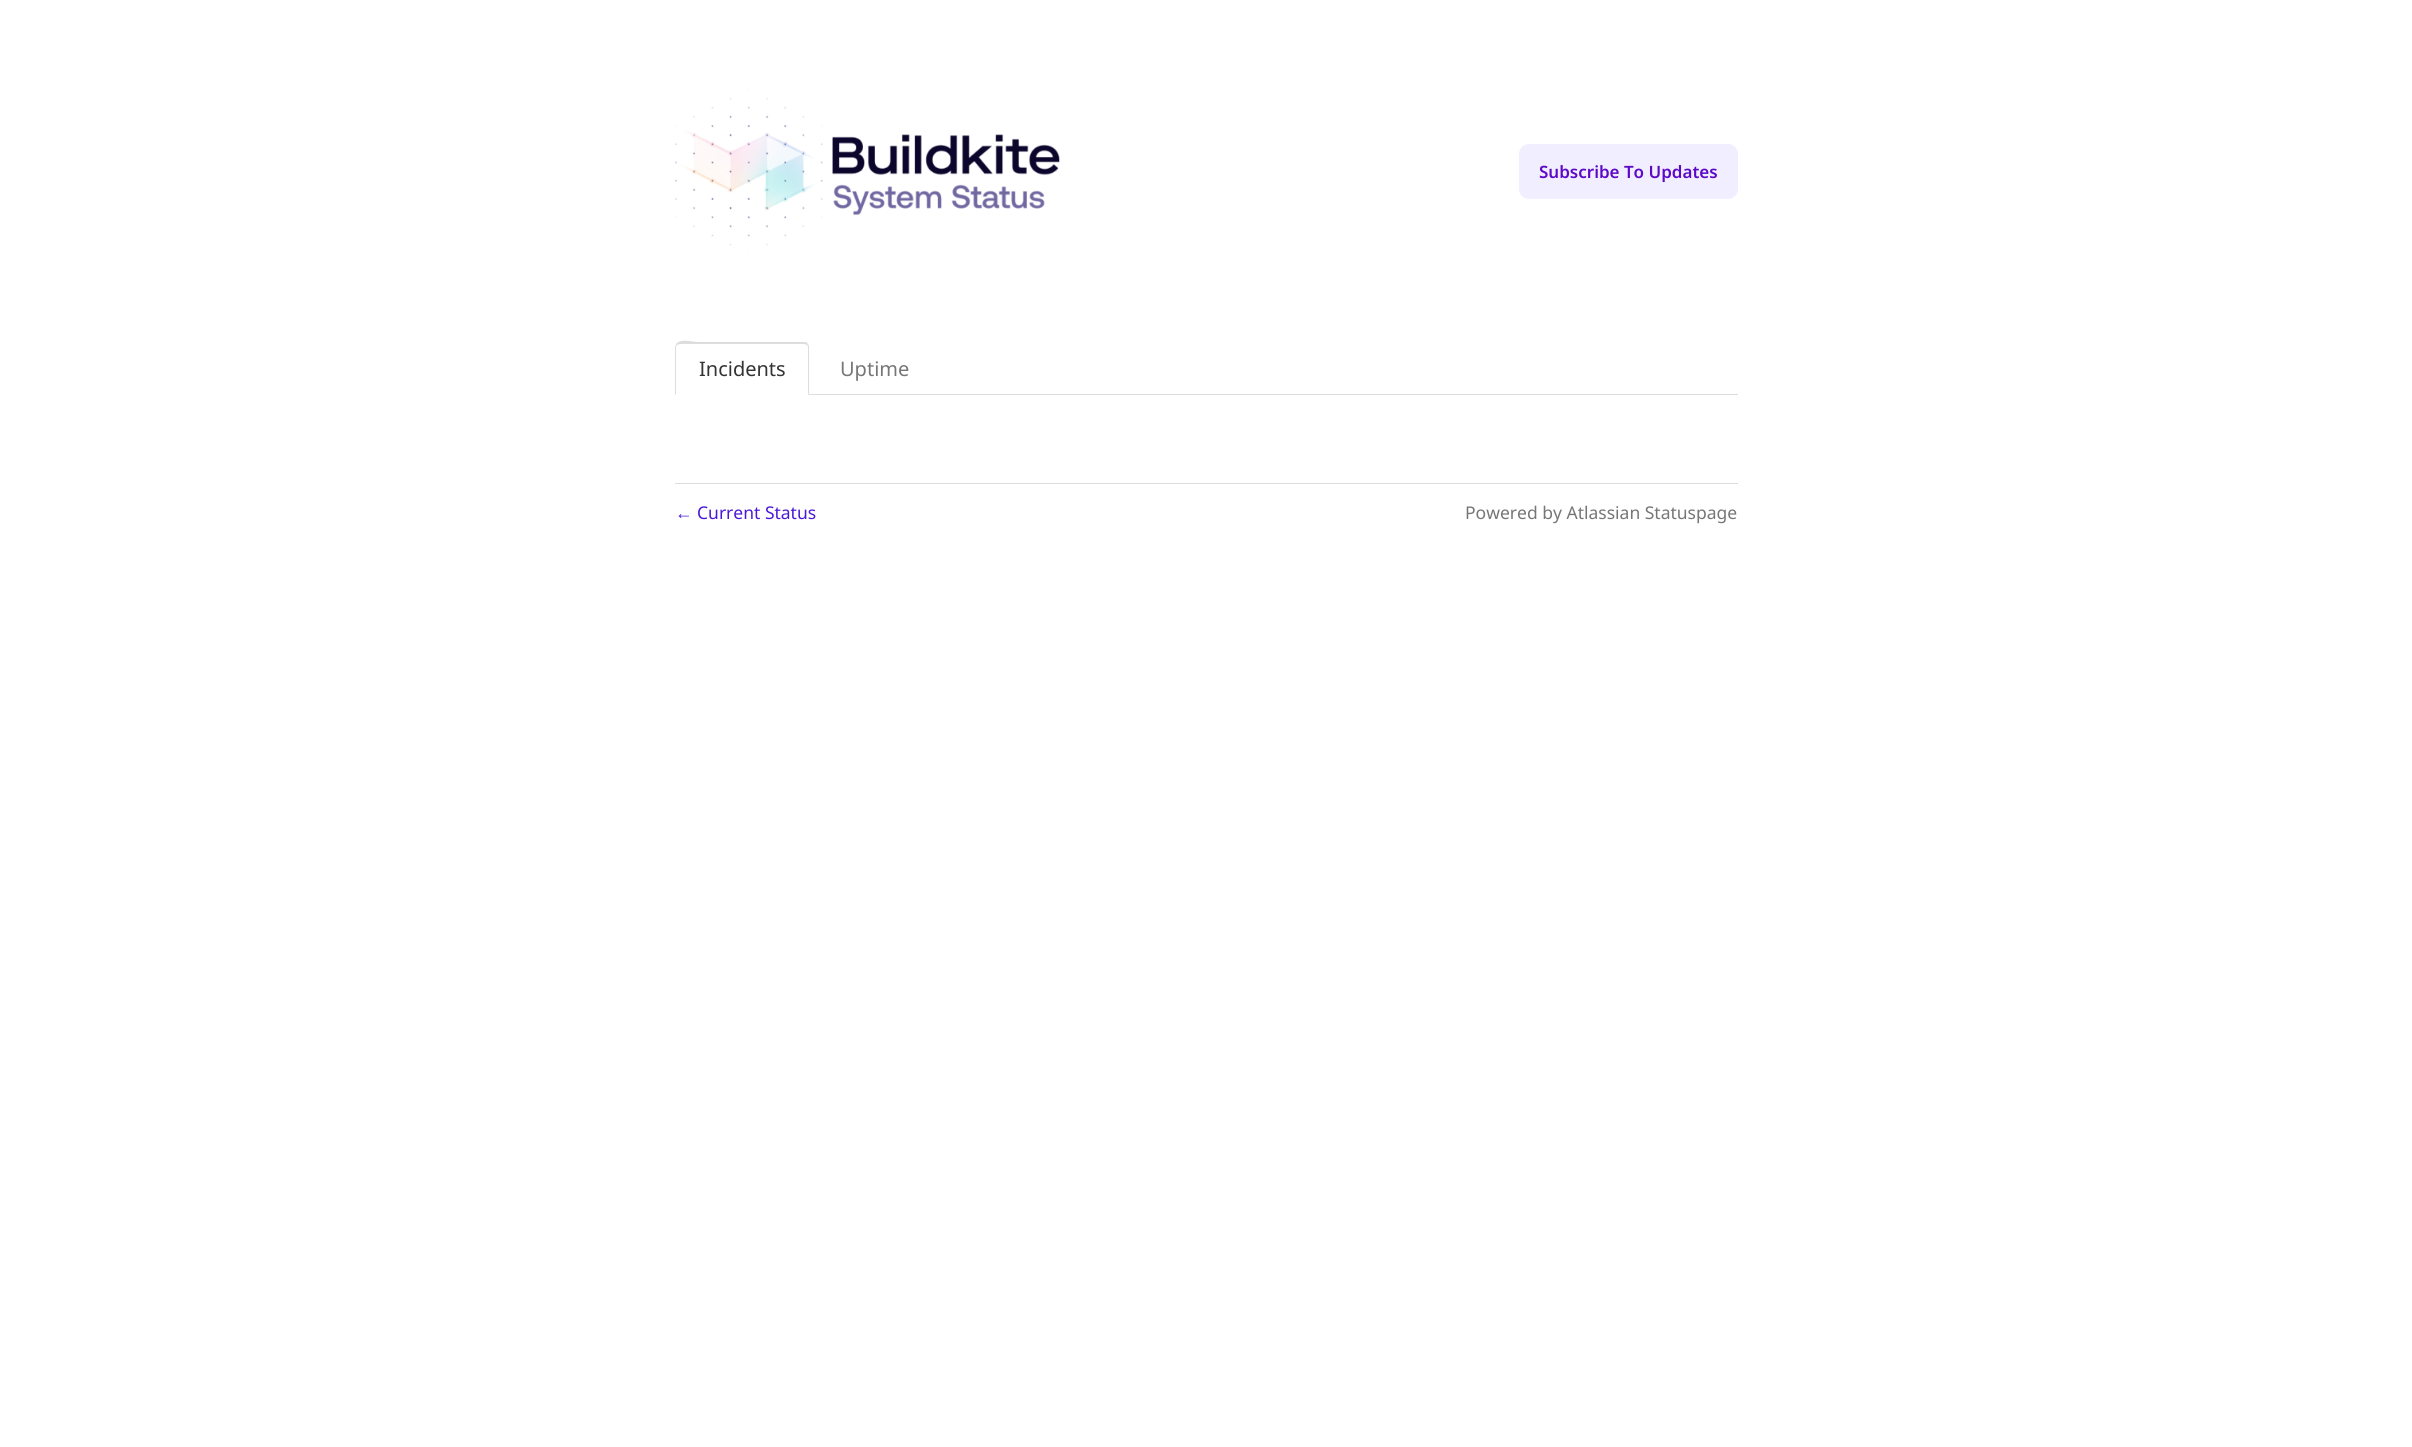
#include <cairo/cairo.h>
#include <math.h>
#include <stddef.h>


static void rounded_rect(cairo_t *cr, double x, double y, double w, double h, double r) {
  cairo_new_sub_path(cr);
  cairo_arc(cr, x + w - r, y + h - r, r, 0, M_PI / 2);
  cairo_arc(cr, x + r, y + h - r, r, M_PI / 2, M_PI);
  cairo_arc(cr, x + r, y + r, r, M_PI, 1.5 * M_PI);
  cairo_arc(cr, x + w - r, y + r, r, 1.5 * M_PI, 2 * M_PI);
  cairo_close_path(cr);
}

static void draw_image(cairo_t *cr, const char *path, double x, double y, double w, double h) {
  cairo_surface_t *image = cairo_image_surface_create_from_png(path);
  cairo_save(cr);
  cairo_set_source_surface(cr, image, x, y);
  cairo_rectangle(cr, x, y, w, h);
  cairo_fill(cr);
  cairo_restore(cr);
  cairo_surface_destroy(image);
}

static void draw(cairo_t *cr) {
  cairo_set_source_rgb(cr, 1, 1, 1);
  cairo_paint(cr);
  draw_image(cr, "images/1.png", 675, 89, 385, 165);
  cairo_set_source_rgb(cr, 241 / 255.0, 239 / 255.0, 1);
  rounded_rect(cr, 1519, 144, 219, 55, 10);
  cairo_fill(cr);
  cairo_set_source_rgb(cr, 221 / 255.0, 221 / 255.0, 221 / 255.0);
  cairo_rectangle(cr, 809, 394, 929, 1);
  cairo_fill(cr);
  cairo_new_path(cr);
  cairo_move_to(cr, 680, 344);
  cairo_line_to(cr, 677, 345);
  cairo_line_to(cr, 676, 344);
  cairo_curve_to(cr, 681, 338, 691, 342, 699, 342);
  cairo_line_to(cr, 806, 342);
  cairo_line_to(cr, 808, 344);
  cairo_line_to(cr, 807, 345);
  cairo_line_to(cr, 804, 344);
  cairo_close_path(cr);
  cairo_fill(cr);
  cairo_new_path(cr);
  cairo_move_to(cr, 809, 346);
  cairo_line_to(cr, 809, 395);
  cairo_line_to(cr, 808, 394);
  cairo_line_to(cr, 808, 347);
  cairo_line_to(cr, 807, 345);
  cairo_line_to(cr, 808, 344);
  cairo_close_path(cr);
  cairo_fill(cr);
  cairo_new_path(cr);
  cairo_move_to(cr, 675, 395);
  cairo_line_to(cr, 676, 394);
  cairo_line_to(cr, 676, 347);
  cairo_line_to(cr, 677, 345);
  cairo_line_to(cr, 676, 344);
  cairo_curve_to(cr, 676, 345, 675, 346, 675, 348);
  cairo_close_path(cr);
  cairo_fill(cr);
  cairo_rectangle(cr, 675, 483, 1063, 1);
  cairo_fill(cr);
  cairo_select_font_face(cr, "Noto Sans SemiBold", CAIRO_FONT_SLANT_NORMAL, CAIRO_FONT_WEIGHT_NORMAL);
  cairo_set_font_size(cr, 17);
  cairo_set_source_rgb(cr, 93 / 255.0, 9 / 255.0, 199 / 255.0);
  cairo_move_to(cr, 1539, 178);
  cairo_show_text(cr, "Subscribe To Updates");
  cairo_select_font_face(cr, "Noto Sans", CAIRO_FONT_SLANT_NORMAL, CAIRO_FONT_WEIGHT_NORMAL);
  cairo_set_font_size(cr, 20);
  cairo_set_source_rgb(cr, 51 / 255.0, 51 / 255.0, 51 / 255.0);
  cairo_move_to(cr, 699, 376);
  cairo_show_text(cr, "Incidents");
  cairo_set_source_rgb(cr, 118 / 255.0, 118 / 255.0, 118 / 255.0);
  cairo_move_to(cr, 840, 376);
  cairo_show_text(cr, "Uptime");
  cairo_select_font_face(cr, "Liberation Sans", CAIRO_FONT_SLANT_NORMAL, CAIRO_FONT_WEIGHT_NORMAL);
  cairo_set_font_size(cr, 17.5);
  cairo_set_source_rgb(cr, 75 / 255.0, 25 / 255.0, 213 / 255.0);
  cairo_move_to(cr, 675, 519);
  cairo_show_text(cr, "←");
  cairo_select_font_face(cr, "Noto Sans", CAIRO_FONT_SLANT_NORMAL, CAIRO_FONT_WEIGHT_NORMAL);
  cairo_move_to(cr, 697, 519);
  cairo_show_text(cr, "Current Status");
  cairo_set_source_rgb(cr, 118 / 255.0, 118 / 255.0, 118 / 255.0);
  cairo_move_to(cr, 1465, 519);
  cairo_show_text(cr, "Powered by Atlassian Statuspage");
}

int main(void) {
  cairo_surface_t *surface = cairo_image_surface_create(CAIRO_FORMAT_RGB24, 2412, 1447);
  cairo_t *cr = cairo_create(surface);
  cairo_font_options_t *options = cairo_font_options_create();
  cairo_font_options_set_hint_metrics(options, CAIRO_HINT_METRICS_OFF);
  cairo_font_options_set_hint_style(options, CAIRO_HINT_STYLE_NONE);
  cairo_set_font_options(cr, options);
  cairo_set_miter_limit(cr, 4);
  draw(cr);
  cairo_surface_write_to_png(surface, "out.png");
  cairo_font_options_destroy(options);
  cairo_destroy(cr);
  cairo_surface_destroy(surface);
  return 0;
}
